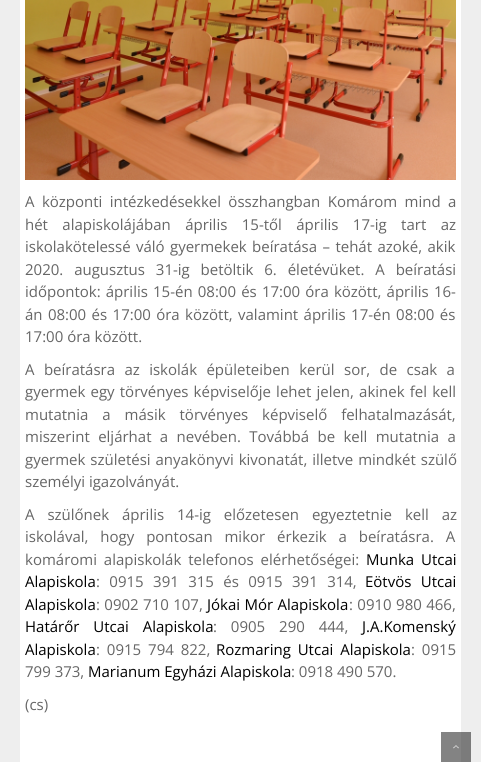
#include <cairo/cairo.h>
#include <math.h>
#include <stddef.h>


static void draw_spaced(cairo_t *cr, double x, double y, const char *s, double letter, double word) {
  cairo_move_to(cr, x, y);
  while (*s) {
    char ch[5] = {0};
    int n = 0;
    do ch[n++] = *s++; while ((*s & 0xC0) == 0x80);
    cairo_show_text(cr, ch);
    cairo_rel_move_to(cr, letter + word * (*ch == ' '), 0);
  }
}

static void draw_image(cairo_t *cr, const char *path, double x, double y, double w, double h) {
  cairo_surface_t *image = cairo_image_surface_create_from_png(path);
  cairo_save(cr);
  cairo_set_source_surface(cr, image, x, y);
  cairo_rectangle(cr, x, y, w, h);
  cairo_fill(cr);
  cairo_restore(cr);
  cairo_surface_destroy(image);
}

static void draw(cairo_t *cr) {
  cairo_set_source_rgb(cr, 238 / 255.0, 238 / 255.0, 238 / 255.0);
  cairo_paint(cr);
  cairo_set_source_rgb(cr, 123 / 255.0, 123 / 255.0, 123 / 255.0);
  cairo_rectangle(cr, 461, 732, 10, 30);
  cairo_fill(cr);
  cairo_set_source_rgb(cr, 1, 1, 1);
  cairo_rectangle(cr, 20, 0, 441, 762);
  cairo_fill(cr);
  cairo_set_source_rgb(cr, 131 / 255.0, 131 / 255.0, 131 / 255.0);
  cairo_rectangle(cr, 441, 732, 20, 30);
  cairo_fill(cr);
  draw_image(cr, "images/1.png", 25, 0, 431, 180);
  draw_image(cr, "images/2.png", 453, 745, 6, 4);
  cairo_select_font_face(cr, "Open Sans", CAIRO_FONT_SLANT_NORMAL, CAIRO_FONT_WEIGHT_NORMAL);
  cairo_set_font_size(cr, 15);
  cairo_set_source_rgb(cr, 102 / 255.0, 102 / 255.0, 102 / 255.0);
  draw_spaced(cr, 25, 207, "A központi intézkedésekkel összhangban Komárom mind a", 0, 3.5);
  draw_spaced(cr, 25, 230, "hét alapiskolájában április 15-től április 17-ig tart az", 0, 10.5);
  draw_spaced(cr, 25, 252, "iskolakötelessé váló gyermekek beíratása – tehát azoké, akik", 0, 1.5);
  draw_spaced(cr, 25, 275, "2020. augusztus 31-ig betöltik 6. életévüket. A beíratási", 0, 7);
  draw_spaced(cr, 25, 297, "időpontok: április 15-én 08:00 és 17:00 óra között, április 16-", 0, 1.25);
  draw_spaced(cr, 25, 320, "án 08:00 és 17:00 óra között, valamint április 17-én 08:00 és", 0, 1.5);
  cairo_move_to(cr, 25, 342);
  cairo_show_text(cr, "17:00 óra között.");
  draw_spaced(cr, 25, 375, "A beíratásra az iskolák épületeiben kerül sor, de csak a", 0, 5.5);
  draw_spaced(cr, 25, 397, "gyermek egy törvényes képviselője lehet jelen, akinek fel kell", 0, 1.25);
  draw_spaced(cr, 25, 420, "mutatnia a másik törvényes képviselő felhatalmazását,", 0, 10);
  draw_spaced(cr, 25, 442, "miszerint eljárhat a nevében. Továbbá be kell mutatnia a", 0, 4.5);
  draw_spaced(cr, 25, 465, "gyermek születési anyakönyvi kivonatát, illetve mindkét szülő", 0, 1);
  cairo_move_to(cr, 25, 487);
  cairo_show_text(cr, "személyi igazolványát.");
  draw_spaced(cr, 25, 520, "A szülőnek április 14-ig előzetesen egyeztetnie kell az", 0, 9);
  draw_spaced(cr, 25, 542, "iskolával, hogy pontosan mikor érkezik a beíratásra. A", 0, 8);
  draw_spaced(cr, 25, 565, "komáromi alapiskolák telefonos elérhetőségei:", 0, 3);
  cairo_set_source_rgb(cr, 0, 0, 0);
  draw_spaced(cr, 366, 565, "Munka Utcai", 0, 3);
  cairo_move_to(cr, 25, 587);
  cairo_show_text(cr, "Alapiskola");
  cairo_set_source_rgb(cr, 102 / 255.0, 102 / 255.0, 102 / 255.0);
  draw_spaced(cr, 96, 587, ": 0915 391 315 és 0915 391 314,", 0, 5.5);
  cairo_set_source_rgb(cr, 0, 0, 0);
  draw_spaced(cr, 365, 587, "Eötvös Utcai", 0, 5.5);
  cairo_move_to(cr, 25, 610);
  cairo_show_text(cr, "Alapiskola");
  cairo_set_source_rgb(cr, 102 / 255.0, 102 / 255.0, 102 / 255.0);
  draw_spaced(cr, 96, 610, ": 0902 710 107,", 0, 0.5);
  cairo_set_source_rgb(cr, 0, 0, 0);
  draw_spaced(cr, 207, 610, "Jókai Mór Alapiskola", 0, 0.5);
  cairo_set_source_rgb(cr, 102 / 255.0, 102 / 255.0, 102 / 255.0);
  draw_spaced(cr, 349, 610, ": 0910 980 466,", 0, 0.5);
  cairo_set_source_rgb(cr, 0, 0, 0);
  draw_spaced(cr, 25, 632, "Határőr Utcai Alapiskola", 0, 10);
  cairo_set_source_rgb(cr, 102 / 255.0, 102 / 255.0, 102 / 255.0);
  draw_spaced(cr, 213, 632, ": 0905 290 444,", 0, 10);
  cairo_set_source_rgb(cr, 0, 0, 0);
  cairo_move_to(cr, 362, 632);
  cairo_show_text(cr, "J.A.Komenský");
  cairo_move_to(cr, 25, 655);
  cairo_show_text(cr, "Alapiskola");
  cairo_set_source_rgb(cr, 102 / 255.0, 102 / 255.0, 102 / 255.0);
  draw_spaced(cr, 96, 655, ": 0915 794 822,", 0, 3);
  cairo_set_source_rgb(cr, 0, 0, 0);
  draw_spaced(cr, 216, 655, "Rozmaring Utcai Alapiskola", 0, 3);
  cairo_set_source_rgb(cr, 102 / 255.0, 102 / 255.0, 102 / 255.0);
  draw_spaced(cr, 411, 655, ": 0915", 0, 3);
  cairo_move_to(cr, 25, 677);
  cairo_show_text(cr, "799 373,");
  cairo_set_source_rgb(cr, 0, 0, 0);
  cairo_move_to(cr, 88, 677);
  cairo_show_text(cr, "Marianum Egyházi Alapiskola");
  cairo_set_source_rgb(cr, 102 / 255.0, 102 / 255.0, 102 / 255.0);
  cairo_move_to(cr, 291, 677);
  cairo_show_text(cr, ": 0918 490 570.");
  cairo_move_to(cr, 25, 710);
  cairo_show_text(cr, "(cs)");
}

int main(void) {
  cairo_surface_t *surface = cairo_image_surface_create(CAIRO_FORMAT_RGB24, 481, 762);
  cairo_t *cr = cairo_create(surface);
  cairo_font_options_t *options = cairo_font_options_create();
  cairo_font_options_set_hint_metrics(options, CAIRO_HINT_METRICS_OFF);
  cairo_font_options_set_hint_style(options, CAIRO_HINT_STYLE_NONE);
  cairo_set_font_options(cr, options);
  cairo_set_miter_limit(cr, 4);
  draw(cr);
  cairo_surface_write_to_png(surface, "out.png");
  cairo_font_options_destroy(options);
  cairo_destroy(cr);
  cairo_surface_destroy(surface);
  return 0;
}
